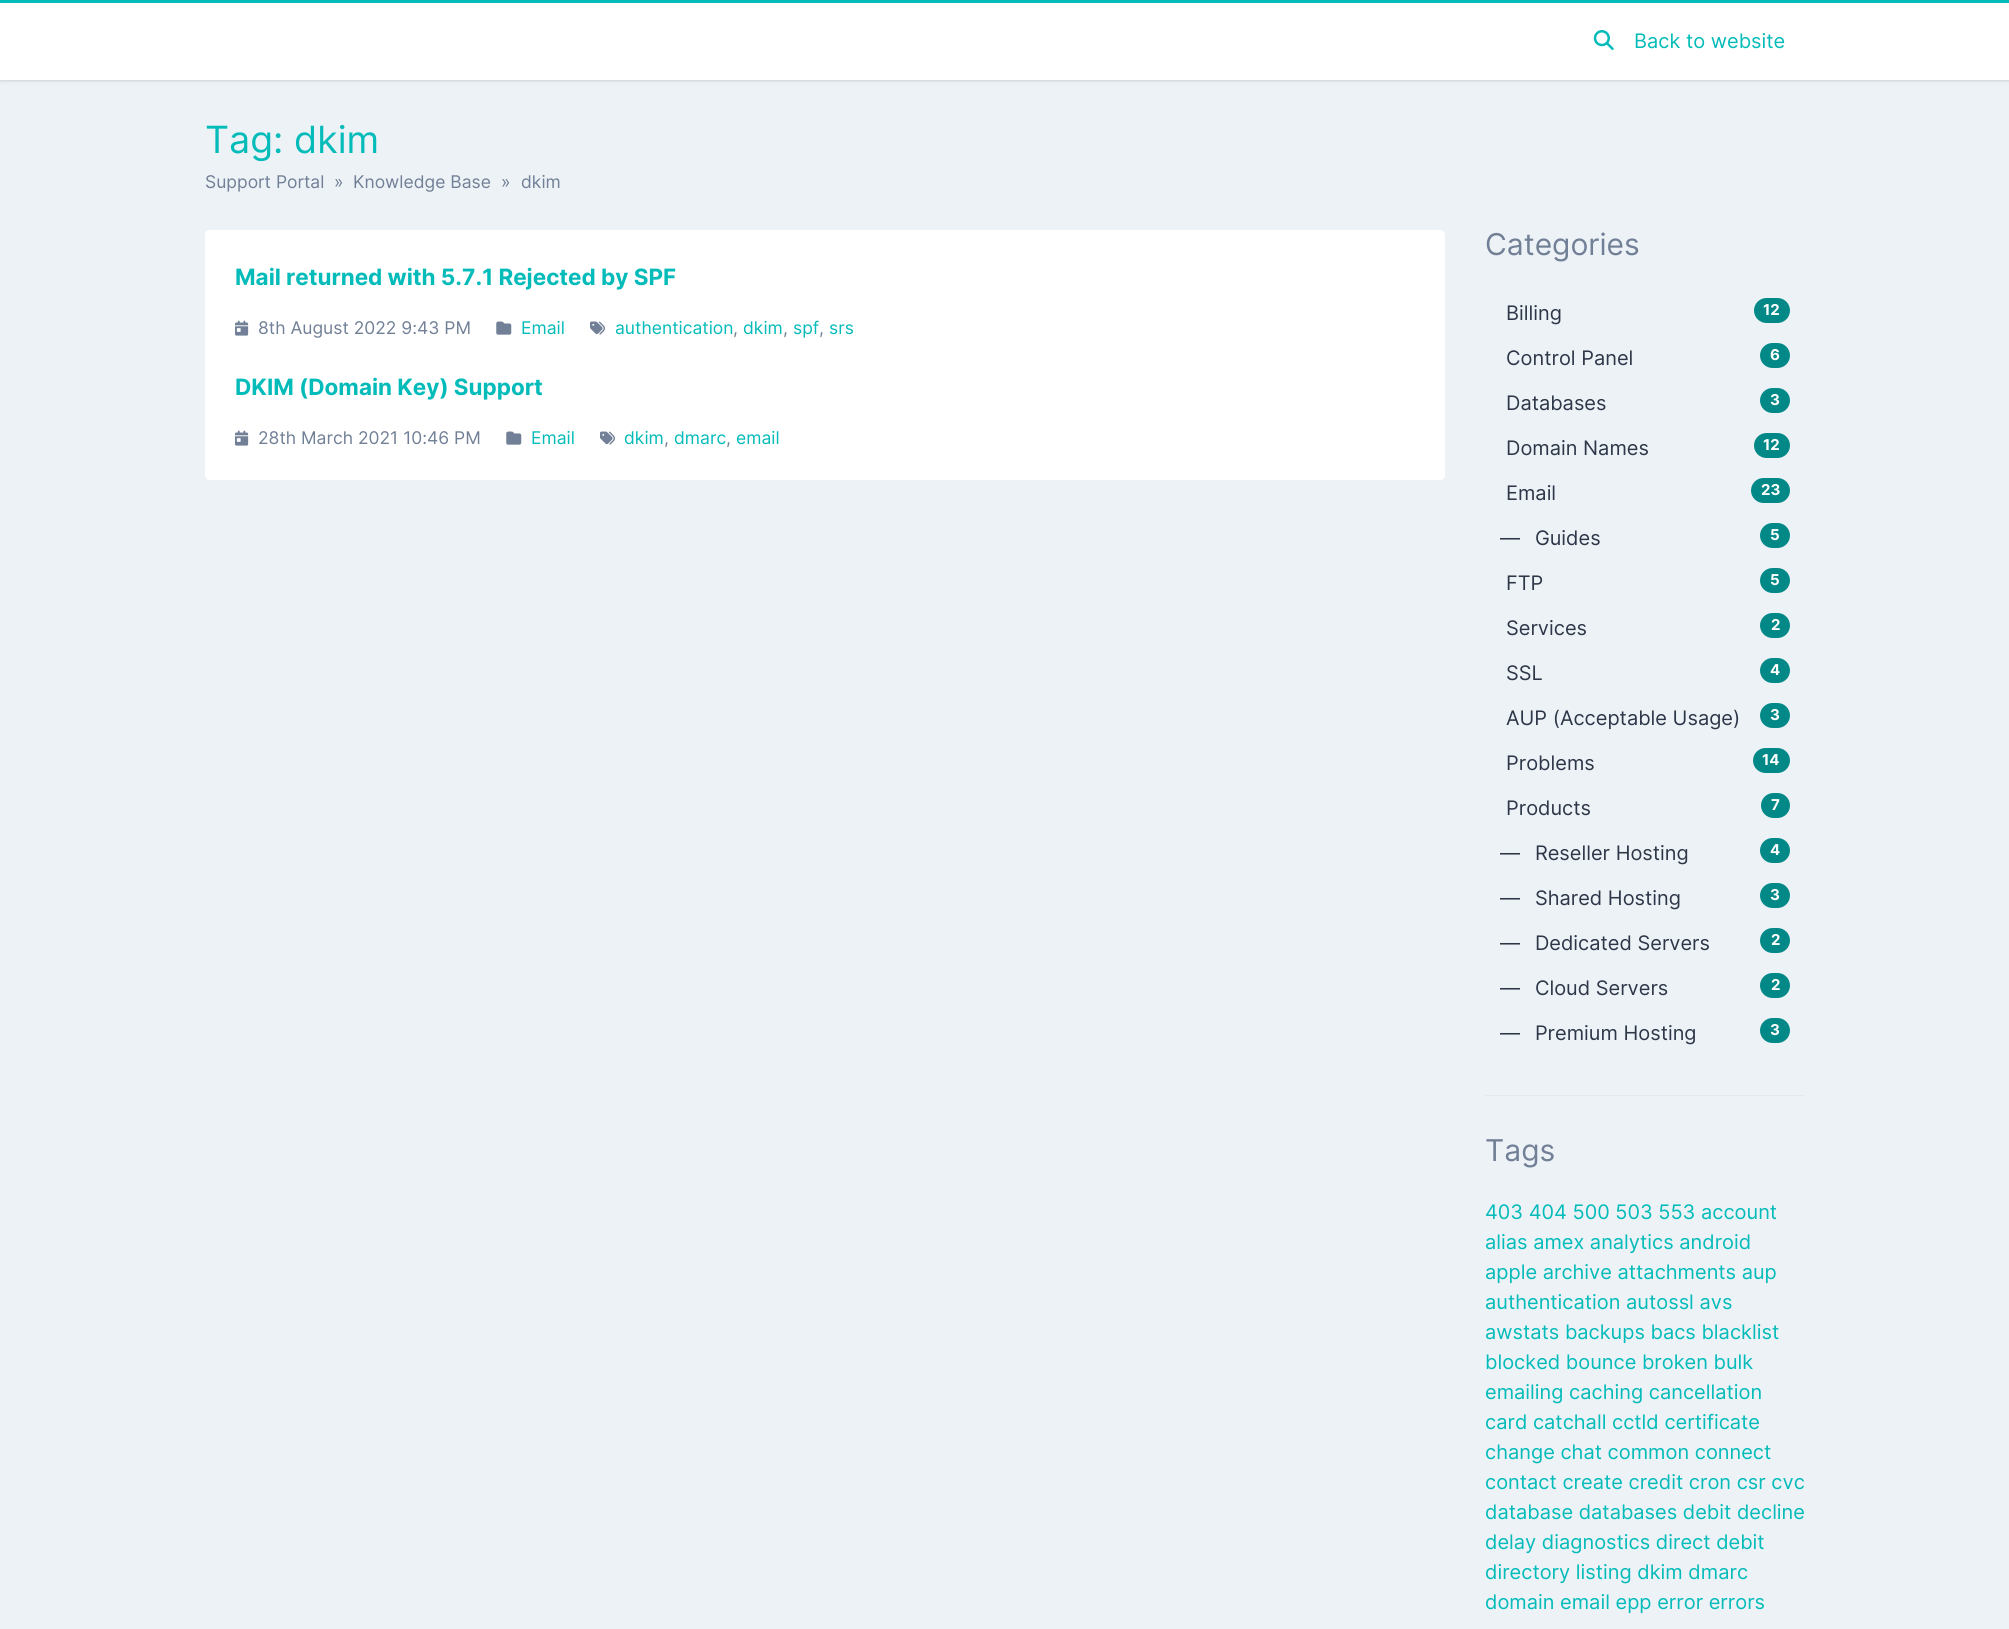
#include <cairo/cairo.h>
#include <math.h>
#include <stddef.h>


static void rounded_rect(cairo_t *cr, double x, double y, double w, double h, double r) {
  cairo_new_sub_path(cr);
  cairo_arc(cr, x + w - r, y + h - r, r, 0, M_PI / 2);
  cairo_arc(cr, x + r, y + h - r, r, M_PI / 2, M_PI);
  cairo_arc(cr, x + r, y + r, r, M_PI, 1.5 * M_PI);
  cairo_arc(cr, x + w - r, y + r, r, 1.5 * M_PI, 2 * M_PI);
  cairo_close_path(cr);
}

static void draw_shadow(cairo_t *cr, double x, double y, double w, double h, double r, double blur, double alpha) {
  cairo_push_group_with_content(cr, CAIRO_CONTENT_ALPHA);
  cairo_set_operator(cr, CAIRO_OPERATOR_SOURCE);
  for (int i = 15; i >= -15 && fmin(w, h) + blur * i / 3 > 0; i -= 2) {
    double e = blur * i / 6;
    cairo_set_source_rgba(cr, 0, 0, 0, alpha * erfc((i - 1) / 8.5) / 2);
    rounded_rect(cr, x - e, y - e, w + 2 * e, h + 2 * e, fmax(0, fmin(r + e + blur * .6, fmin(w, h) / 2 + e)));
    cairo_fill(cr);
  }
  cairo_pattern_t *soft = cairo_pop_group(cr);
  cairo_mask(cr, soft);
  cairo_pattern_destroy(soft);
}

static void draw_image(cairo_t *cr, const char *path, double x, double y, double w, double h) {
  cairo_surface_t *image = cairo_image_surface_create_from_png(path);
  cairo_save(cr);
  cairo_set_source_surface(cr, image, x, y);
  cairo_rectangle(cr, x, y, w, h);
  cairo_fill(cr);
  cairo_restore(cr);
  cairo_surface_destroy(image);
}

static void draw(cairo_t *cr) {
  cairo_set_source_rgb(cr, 237 / 255.0, 242 / 255.0, 247 / 255.0);
  cairo_paint(cr);
  cairo_set_source_rgb(cr, 0, 0, 0);
  draw_shadow(cr, 1, 3, 2008, 77, 0, 1, 0.1);
  draw_shadow(cr, 0, 1, 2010, 80, 0, 2, 0.1);
  cairo_set_source_rgb(cr, 3 / 255.0, 187 / 255.0, 185 / 255.0);
  cairo_rectangle(cr, 0, 0, 2009, 3);
  cairo_fill(cr);
  cairo_set_source_rgb(cr, 1, 1, 1);
  cairo_rectangle(cr, 0, 3, 2009, 77);
  cairo_fill(cr);
  draw_image(cr, "images/1.png", 1593, 30, 21, 20);
  rounded_rect(cr, 205, 230, 1240, 250, 5);
  cairo_fill(cr);
  draw_image(cr, "images/2.png", 235, 320, 14, 16);
  draw_image(cr, "images/3.png", 496, 321, 16, 14);
  draw_image(cr, "images/4.png", 590, 321, 15, 14);
  draw_image(cr, "images/2.png", 235, 430, 14, 16);
  draw_image(cr, "images/3.png", 506, 431, 16, 14);
  draw_image(cr, "images/4.png", 600, 431, 15, 14);
  cairo_set_source_rgb(cr, 2 / 255.0, 137 / 255.0, 135 / 255.0);
  rounded_rect(cr, 1754, 298, 36, 25, 12.5);
  cairo_fill(cr);
  rounded_rect(cr, 1760, 343, 30, 25, 12.5);
  cairo_fill(cr);
  rounded_rect(cr, 1760, 388, 30, 25, 12.5);
  cairo_fill(cr);
  rounded_rect(cr, 1754, 433, 36, 25, 12.5);
  cairo_fill(cr);
  rounded_rect(cr, 1751, 478, 39, 25, 12.5);
  cairo_fill(cr);
  rounded_rect(cr, 1760, 523, 30, 25, 12.5);
  cairo_fill(cr);
  rounded_rect(cr, 1760, 568, 30, 25, 12.5);
  cairo_fill(cr);
  rounded_rect(cr, 1760, 613, 30, 25, 12.5);
  cairo_fill(cr);
  rounded_rect(cr, 1760, 658, 30, 25, 12.5);
  cairo_fill(cr);
  rounded_rect(cr, 1760, 703, 30, 25, 12.5);
  cairo_fill(cr);
  rounded_rect(cr, 1753, 748, 37, 25, 12.5);
  cairo_fill(cr);
  rounded_rect(cr, 1761, 793, 29, 25, 12.5);
  cairo_fill(cr);
  rounded_rect(cr, 1760, 838, 30, 25, 12.5);
  cairo_fill(cr);
  rounded_rect(cr, 1760, 883, 30, 25, 12.5);
  cairo_fill(cr);
  rounded_rect(cr, 1760, 928, 30, 25, 12.5);
  cairo_fill(cr);
  rounded_rect(cr, 1760, 973, 30, 25, 12.5);
  cairo_fill(cr);
  rounded_rect(cr, 1760, 1018, 30, 25, 12.5);
  cairo_fill(cr);
  cairo_set_source_rgb(cr, 226 / 255.0, 232 / 255.0, 240 / 255.0);
  cairo_rectangle(cr, 1485, 1095, 320, 1);
  cairo_fill(cr);
  cairo_select_font_face(cr, "Inter", CAIRO_FONT_SLANT_NORMAL, CAIRO_FONT_WEIGHT_NORMAL);
  cairo_set_font_size(cr, 20);
  cairo_set_source_rgb(cr, 3 / 255.0, 187 / 255.0, 185 / 255.0);
  cairo_move_to(cr, 1634, 48);
  cairo_show_text(cr, "Back to website");
  cairo_set_font_size(cr, 37.5);
  cairo_move_to(cr, 205, 153);
  cairo_show_text(cr, "Tag: dkim");
  cairo_set_font_size(cr, 17.5);
  cairo_set_source_rgb(cr, 113 / 255.0, 128 / 255.0, 150 / 255.0);
  cairo_move_to(cr, 205, 188);
  cairo_show_text(cr, "Support Portal");
  cairo_move_to(cr, 334, 188);
  cairo_show_text(cr, "»");
  cairo_move_to(cr, 353, 188);
  cairo_show_text(cr, "Knowledge Base");
  cairo_move_to(cr, 501, 188);
  cairo_show_text(cr, "»");
  cairo_move_to(cr, 521, 188);
  cairo_show_text(cr, "dkim");
  cairo_select_font_face(cr, "Inter", CAIRO_FONT_SLANT_NORMAL, CAIRO_FONT_WEIGHT_BOLD);
  cairo_set_font_size(cr, 22.5);
  cairo_set_source_rgb(cr, 3 / 255.0, 187 / 255.0, 185 / 255.0);
  cairo_move_to(cr, 235, 285);
  cairo_show_text(cr, "Mail returned with 5.7.1 Rejected by SPF");
  cairo_select_font_face(cr, "Inter", CAIRO_FONT_SLANT_NORMAL, CAIRO_FONT_WEIGHT_NORMAL);
  cairo_set_font_size(cr, 17.5);
  cairo_set_source_rgb(cr, 113 / 255.0, 128 / 255.0, 150 / 255.0);
  cairo_move_to(cr, 258, 334);
  cairo_show_text(cr, "8th August 2022 9:43 PM");
  cairo_set_source_rgb(cr, 3 / 255.0, 187 / 255.0, 185 / 255.0);
  cairo_move_to(cr, 521, 334);
  cairo_show_text(cr, "Email");
  cairo_move_to(cr, 615, 334);
  cairo_show_text(cr, "authentication");
  cairo_set_source_rgb(cr, 113 / 255.0, 128 / 255.0, 150 / 255.0);
  cairo_move_to(cr, 733, 334);
  cairo_show_text(cr, ",");
  cairo_set_source_rgb(cr, 3 / 255.0, 187 / 255.0, 185 / 255.0);
  cairo_move_to(cr, 743, 334);
  cairo_show_text(cr, "dkim");
  cairo_set_source_rgb(cr, 113 / 255.0, 128 / 255.0, 150 / 255.0);
  cairo_move_to(cr, 783, 334);
  cairo_show_text(cr, ",");
  cairo_set_source_rgb(cr, 3 / 255.0, 187 / 255.0, 185 / 255.0);
  cairo_move_to(cr, 793, 334);
  cairo_show_text(cr, "spf");
  cairo_set_source_rgb(cr, 113 / 255.0, 128 / 255.0, 150 / 255.0);
  cairo_move_to(cr, 819, 334);
  cairo_show_text(cr, ",");
  cairo_set_source_rgb(cr, 3 / 255.0, 187 / 255.0, 185 / 255.0);
  cairo_move_to(cr, 829, 334);
  cairo_show_text(cr, "srs");
  cairo_select_font_face(cr, "Inter", CAIRO_FONT_SLANT_NORMAL, CAIRO_FONT_WEIGHT_BOLD);
  cairo_set_font_size(cr, 22.5);
  cairo_move_to(cr, 235, 395);
  cairo_show_text(cr, "DKIM (Domain Key) Support");
  cairo_select_font_face(cr, "Inter", CAIRO_FONT_SLANT_NORMAL, CAIRO_FONT_WEIGHT_NORMAL);
  cairo_set_font_size(cr, 17.5);
  cairo_set_source_rgb(cr, 113 / 255.0, 128 / 255.0, 150 / 255.0);
  cairo_move_to(cr, 258, 444);
  cairo_show_text(cr, "28th March 2021 10:46 PM");
  cairo_set_source_rgb(cr, 3 / 255.0, 187 / 255.0, 185 / 255.0);
  cairo_move_to(cr, 531, 444);
  cairo_show_text(cr, "Email");
  cairo_move_to(cr, 624, 444);
  cairo_show_text(cr, "dkim");
  cairo_set_source_rgb(cr, 113 / 255.0, 128 / 255.0, 150 / 255.0);
  cairo_move_to(cr, 664, 444);
  cairo_show_text(cr, ",");
  cairo_set_source_rgb(cr, 3 / 255.0, 187 / 255.0, 185 / 255.0);
  cairo_move_to(cr, 674, 444);
  cairo_show_text(cr, "dmarc");
  cairo_set_source_rgb(cr, 113 / 255.0, 128 / 255.0, 150 / 255.0);
  cairo_move_to(cr, 726, 444);
  cairo_show_text(cr, ",");
  cairo_set_source_rgb(cr, 3 / 255.0, 187 / 255.0, 185 / 255.0);
  cairo_move_to(cr, 736, 444);
  cairo_show_text(cr, "email");
  cairo_set_font_size(cr, 30);
  cairo_set_source_rgb(cr, 113 / 255.0, 128 / 255.0, 150 / 255.0);
  cairo_move_to(cr, 1485, 255);
  cairo_show_text(cr, "Categories");
  cairo_set_font_size(cr, 20);
  cairo_set_source_rgb(cr, 45 / 255.0, 55 / 255.0, 72 / 255.0);
  cairo_move_to(cr, 1506, 320);
  cairo_show_text(cr, "Billing");
  cairo_select_font_face(cr, "Inter", CAIRO_FONT_SLANT_NORMAL, CAIRO_FONT_WEIGHT_BOLD);
  cairo_set_font_size(cr, 15);
  cairo_set_source_rgb(cr, 1, 1, 1);
  cairo_move_to(cr, 1763, 315);
  cairo_show_text(cr, "12");
  cairo_select_font_face(cr, "Inter", CAIRO_FONT_SLANT_NORMAL, CAIRO_FONT_WEIGHT_NORMAL);
  cairo_set_font_size(cr, 20);
  cairo_set_source_rgb(cr, 45 / 255.0, 55 / 255.0, 72 / 255.0);
  cairo_move_to(cr, 1506, 365);
  cairo_show_text(cr, "Control Panel");
  cairo_select_font_face(cr, "Inter", CAIRO_FONT_SLANT_NORMAL, CAIRO_FONT_WEIGHT_BOLD);
  cairo_set_font_size(cr, 15);
  cairo_set_source_rgb(cr, 1, 1, 1);
  cairo_move_to(cr, 1770, 360);
  cairo_show_text(cr, "6");
  cairo_select_font_face(cr, "Inter", CAIRO_FONT_SLANT_NORMAL, CAIRO_FONT_WEIGHT_NORMAL);
  cairo_set_font_size(cr, 20);
  cairo_set_source_rgb(cr, 45 / 255.0, 55 / 255.0, 72 / 255.0);
  cairo_move_to(cr, 1506, 410);
  cairo_show_text(cr, "Databases");
  cairo_select_font_face(cr, "Inter", CAIRO_FONT_SLANT_NORMAL, CAIRO_FONT_WEIGHT_BOLD);
  cairo_set_font_size(cr, 15);
  cairo_set_source_rgb(cr, 1, 1, 1);
  cairo_move_to(cr, 1770, 405);
  cairo_show_text(cr, "3");
  cairo_select_font_face(cr, "Inter", CAIRO_FONT_SLANT_NORMAL, CAIRO_FONT_WEIGHT_NORMAL);
  cairo_set_font_size(cr, 20);
  cairo_set_source_rgb(cr, 45 / 255.0, 55 / 255.0, 72 / 255.0);
  cairo_move_to(cr, 1506, 455);
  cairo_show_text(cr, "Domain Names");
  cairo_select_font_face(cr, "Inter", CAIRO_FONT_SLANT_NORMAL, CAIRO_FONT_WEIGHT_BOLD);
  cairo_set_font_size(cr, 15);
  cairo_set_source_rgb(cr, 1, 1, 1);
  cairo_move_to(cr, 1763, 450);
  cairo_show_text(cr, "12");
  cairo_select_font_face(cr, "Inter", CAIRO_FONT_SLANT_NORMAL, CAIRO_FONT_WEIGHT_NORMAL);
  cairo_set_font_size(cr, 20);
  cairo_set_source_rgb(cr, 45 / 255.0, 55 / 255.0, 72 / 255.0);
  cairo_move_to(cr, 1506, 500);
  cairo_show_text(cr, "Email");
  cairo_select_font_face(cr, "Inter", CAIRO_FONT_SLANT_NORMAL, CAIRO_FONT_WEIGHT_BOLD);
  cairo_set_font_size(cr, 15);
  cairo_set_source_rgb(cr, 1, 1, 1);
  cairo_move_to(cr, 1761, 495);
  cairo_show_text(cr, "23");
  cairo_select_font_face(cr, "Inter", CAIRO_FONT_SLANT_NORMAL, CAIRO_FONT_WEIGHT_NORMAL);
  cairo_set_font_size(cr, 20);
  cairo_set_source_rgb(cr, 45 / 255.0, 55 / 255.0, 72 / 255.0);
  cairo_move_to(cr, 1500, 545);
  cairo_show_text(cr, "—   Guides");
  cairo_select_font_face(cr, "Inter", CAIRO_FONT_SLANT_NORMAL, CAIRO_FONT_WEIGHT_BOLD);
  cairo_set_font_size(cr, 15);
  cairo_set_source_rgb(cr, 1, 1, 1);
  cairo_move_to(cr, 1770, 540);
  cairo_show_text(cr, "5");
  cairo_select_font_face(cr, "Inter", CAIRO_FONT_SLANT_NORMAL, CAIRO_FONT_WEIGHT_NORMAL);
  cairo_set_font_size(cr, 20);
  cairo_set_source_rgb(cr, 45 / 255.0, 55 / 255.0, 72 / 255.0);
  cairo_move_to(cr, 1506, 590);
  cairo_show_text(cr, "FTP");
  cairo_select_font_face(cr, "Inter", CAIRO_FONT_SLANT_NORMAL, CAIRO_FONT_WEIGHT_BOLD);
  cairo_set_font_size(cr, 15);
  cairo_set_source_rgb(cr, 1, 1, 1);
  cairo_move_to(cr, 1770, 585);
  cairo_show_text(cr, "5");
  cairo_select_font_face(cr, "Inter", CAIRO_FONT_SLANT_NORMAL, CAIRO_FONT_WEIGHT_NORMAL);
  cairo_set_font_size(cr, 20);
  cairo_set_source_rgb(cr, 45 / 255.0, 55 / 255.0, 72 / 255.0);
  cairo_move_to(cr, 1506, 635);
  cairo_show_text(cr, "Services");
  cairo_select_font_face(cr, "Inter", CAIRO_FONT_SLANT_NORMAL, CAIRO_FONT_WEIGHT_BOLD);
  cairo_set_font_size(cr, 15);
  cairo_set_source_rgb(cr, 1, 1, 1);
  cairo_move_to(cr, 1771, 630);
  cairo_show_text(cr, "2");
  cairo_select_font_face(cr, "Inter", CAIRO_FONT_SLANT_NORMAL, CAIRO_FONT_WEIGHT_NORMAL);
  cairo_set_font_size(cr, 20);
  cairo_set_source_rgb(cr, 45 / 255.0, 55 / 255.0, 72 / 255.0);
  cairo_move_to(cr, 1506, 680);
  cairo_show_text(cr, "SSL");
  cairo_select_font_face(cr, "Inter", CAIRO_FONT_SLANT_NORMAL, CAIRO_FONT_WEIGHT_BOLD);
  cairo_set_font_size(cr, 15);
  cairo_set_source_rgb(cr, 1, 1, 1);
  cairo_move_to(cr, 1770, 675);
  cairo_show_text(cr, "4");
  cairo_select_font_face(cr, "Inter", CAIRO_FONT_SLANT_NORMAL, CAIRO_FONT_WEIGHT_NORMAL);
  cairo_set_font_size(cr, 20);
  cairo_set_source_rgb(cr, 45 / 255.0, 55 / 255.0, 72 / 255.0);
  cairo_move_to(cr, 1506, 725);
  cairo_show_text(cr, "AUP (Acceptable Usage)");
  cairo_select_font_face(cr, "Inter", CAIRO_FONT_SLANT_NORMAL, CAIRO_FONT_WEIGHT_BOLD);
  cairo_set_font_size(cr, 15);
  cairo_set_source_rgb(cr, 1, 1, 1);
  cairo_move_to(cr, 1770, 720);
  cairo_show_text(cr, "3");
  cairo_select_font_face(cr, "Inter", CAIRO_FONT_SLANT_NORMAL, CAIRO_FONT_WEIGHT_NORMAL);
  cairo_set_font_size(cr, 20);
  cairo_set_source_rgb(cr, 45 / 255.0, 55 / 255.0, 72 / 255.0);
  cairo_move_to(cr, 1506, 770);
  cairo_show_text(cr, "Problems");
  cairo_select_font_face(cr, "Inter", CAIRO_FONT_SLANT_NORMAL, CAIRO_FONT_WEIGHT_BOLD);
  cairo_set_font_size(cr, 15);
  cairo_set_source_rgb(cr, 1, 1, 1);
  cairo_move_to(cr, 1762, 765);
  cairo_show_text(cr, "14");
  cairo_select_font_face(cr, "Inter", CAIRO_FONT_SLANT_NORMAL, CAIRO_FONT_WEIGHT_NORMAL);
  cairo_set_font_size(cr, 20);
  cairo_set_source_rgb(cr, 45 / 255.0, 55 / 255.0, 72 / 255.0);
  cairo_move_to(cr, 1506, 815);
  cairo_show_text(cr, "Products");
  cairo_select_font_face(cr, "Inter", CAIRO_FONT_SLANT_NORMAL, CAIRO_FONT_WEIGHT_BOLD);
  cairo_set_font_size(cr, 15);
  cairo_set_source_rgb(cr, 1, 1, 1);
  cairo_move_to(cr, 1771, 810);
  cairo_show_text(cr, "7");
  cairo_select_font_face(cr, "Inter", CAIRO_FONT_SLANT_NORMAL, CAIRO_FONT_WEIGHT_NORMAL);
  cairo_set_font_size(cr, 20);
  cairo_set_source_rgb(cr, 45 / 255.0, 55 / 255.0, 72 / 255.0);
  cairo_move_to(cr, 1500, 860);
  cairo_show_text(cr, "—   Reseller Hosting");
  cairo_select_font_face(cr, "Inter", CAIRO_FONT_SLANT_NORMAL, CAIRO_FONT_WEIGHT_BOLD);
  cairo_set_font_size(cr, 15);
  cairo_set_source_rgb(cr, 1, 1, 1);
  cairo_move_to(cr, 1770, 855);
  cairo_show_text(cr, "4");
  cairo_select_font_face(cr, "Inter", CAIRO_FONT_SLANT_NORMAL, CAIRO_FONT_WEIGHT_NORMAL);
  cairo_set_font_size(cr, 20);
  cairo_set_source_rgb(cr, 45 / 255.0, 55 / 255.0, 72 / 255.0);
  cairo_move_to(cr, 1500, 905);
  cairo_show_text(cr, "—   Shared Hosting");
  cairo_select_font_face(cr, "Inter", CAIRO_FONT_SLANT_NORMAL, CAIRO_FONT_WEIGHT_BOLD);
  cairo_set_font_size(cr, 15);
  cairo_set_source_rgb(cr, 1, 1, 1);
  cairo_move_to(cr, 1770, 900);
  cairo_show_text(cr, "3");
  cairo_select_font_face(cr, "Inter", CAIRO_FONT_SLANT_NORMAL, CAIRO_FONT_WEIGHT_NORMAL);
  cairo_set_font_size(cr, 20);
  cairo_set_source_rgb(cr, 45 / 255.0, 55 / 255.0, 72 / 255.0);
  cairo_move_to(cr, 1500, 950);
  cairo_show_text(cr, "—   Dedicated Servers");
  cairo_select_font_face(cr, "Inter", CAIRO_FONT_SLANT_NORMAL, CAIRO_FONT_WEIGHT_BOLD);
  cairo_set_font_size(cr, 15);
  cairo_set_source_rgb(cr, 1, 1, 1);
  cairo_move_to(cr, 1771, 945);
  cairo_show_text(cr, "2");
  cairo_select_font_face(cr, "Inter", CAIRO_FONT_SLANT_NORMAL, CAIRO_FONT_WEIGHT_NORMAL);
  cairo_set_font_size(cr, 20);
  cairo_set_source_rgb(cr, 45 / 255.0, 55 / 255.0, 72 / 255.0);
  cairo_move_to(cr, 1500, 995);
  cairo_show_text(cr, "—   Cloud Servers");
  cairo_select_font_face(cr, "Inter", CAIRO_FONT_SLANT_NORMAL, CAIRO_FONT_WEIGHT_BOLD);
  cairo_set_font_size(cr, 15);
  cairo_set_source_rgb(cr, 1, 1, 1);
  cairo_move_to(cr, 1771, 990);
  cairo_show_text(cr, "2");
  cairo_select_font_face(cr, "Inter", CAIRO_FONT_SLANT_NORMAL, CAIRO_FONT_WEIGHT_NORMAL);
  cairo_set_font_size(cr, 20);
  cairo_set_source_rgb(cr, 45 / 255.0, 55 / 255.0, 72 / 255.0);
  cairo_move_to(cr, 1500, 1040);
  cairo_show_text(cr, "—   Premium Hosting");
  cairo_select_font_face(cr, "Inter", CAIRO_FONT_SLANT_NORMAL, CAIRO_FONT_WEIGHT_BOLD);
  cairo_set_font_size(cr, 15);
  cairo_set_source_rgb(cr, 1, 1, 1);
  cairo_move_to(cr, 1770, 1035);
  cairo_show_text(cr, "3");
  cairo_select_font_face(cr, "Inter", CAIRO_FONT_SLANT_NORMAL, CAIRO_FONT_WEIGHT_NORMAL);
  cairo_set_font_size(cr, 30);
  cairo_set_source_rgb(cr, 113 / 255.0, 128 / 255.0, 150 / 255.0);
  cairo_move_to(cr, 1485, 1161);
  cairo_show_text(cr, "Tags");
  cairo_set_font_size(cr, 20);
  cairo_set_source_rgb(cr, 3 / 255.0, 187 / 255.0, 185 / 255.0);
  cairo_move_to(cr, 1485, 1219);
  cairo_show_text(cr, "403 404 500 503 553 account");
  cairo_move_to(cr, 1485, 1249);
  cairo_show_text(cr, "alias amex analytics android");
  cairo_move_to(cr, 1485, 1279);
  cairo_show_text(cr, "apple archive attachments aup");
  cairo_move_to(cr, 1485, 1309);
  cairo_show_text(cr, "authentication autossl avs");
  cairo_move_to(cr, 1485, 1339);
  cairo_show_text(cr, "awstats backups bacs blacklist");
  cairo_move_to(cr, 1485, 1369);
  cairo_show_text(cr, "blocked bounce broken bulk");
  cairo_move_to(cr, 1485, 1399);
  cairo_show_text(cr, "emailing caching cancellation");
  cairo_move_to(cr, 1485, 1429);
  cairo_show_text(cr, "card catchall cctld certificate");
  cairo_move_to(cr, 1485, 1459);
  cairo_show_text(cr, "change chat common connect");
  cairo_move_to(cr, 1485, 1489);
  cairo_show_text(cr, "contact create credit cron csr cvc");
  cairo_move_to(cr, 1485, 1519);
  cairo_show_text(cr, "database databases debit decline");
  cairo_move_to(cr, 1485, 1549);
  cairo_show_text(cr, "delay diagnostics direct debit");
  cairo_move_to(cr, 1485, 1579);
  cairo_show_text(cr, "directory listing dkim dmarc");
  cairo_move_to(cr, 1485, 1609);
  cairo_show_text(cr, "domain email epp error errors");
}

int main(void) {
  cairo_surface_t *surface = cairo_image_surface_create(CAIRO_FORMAT_RGB24, 2009, 1629);
  cairo_t *cr = cairo_create(surface);
  cairo_font_options_t *options = cairo_font_options_create();
  cairo_font_options_set_hint_metrics(options, CAIRO_HINT_METRICS_OFF);
  cairo_font_options_set_hint_style(options, CAIRO_HINT_STYLE_NONE);
  cairo_set_font_options(cr, options);
  cairo_set_miter_limit(cr, 4);
  draw(cr);
  cairo_surface_write_to_png(surface, "out.png");
  cairo_font_options_destroy(options);
  cairo_destroy(cr);
  cairo_surface_destroy(surface);
  return 0;
}
